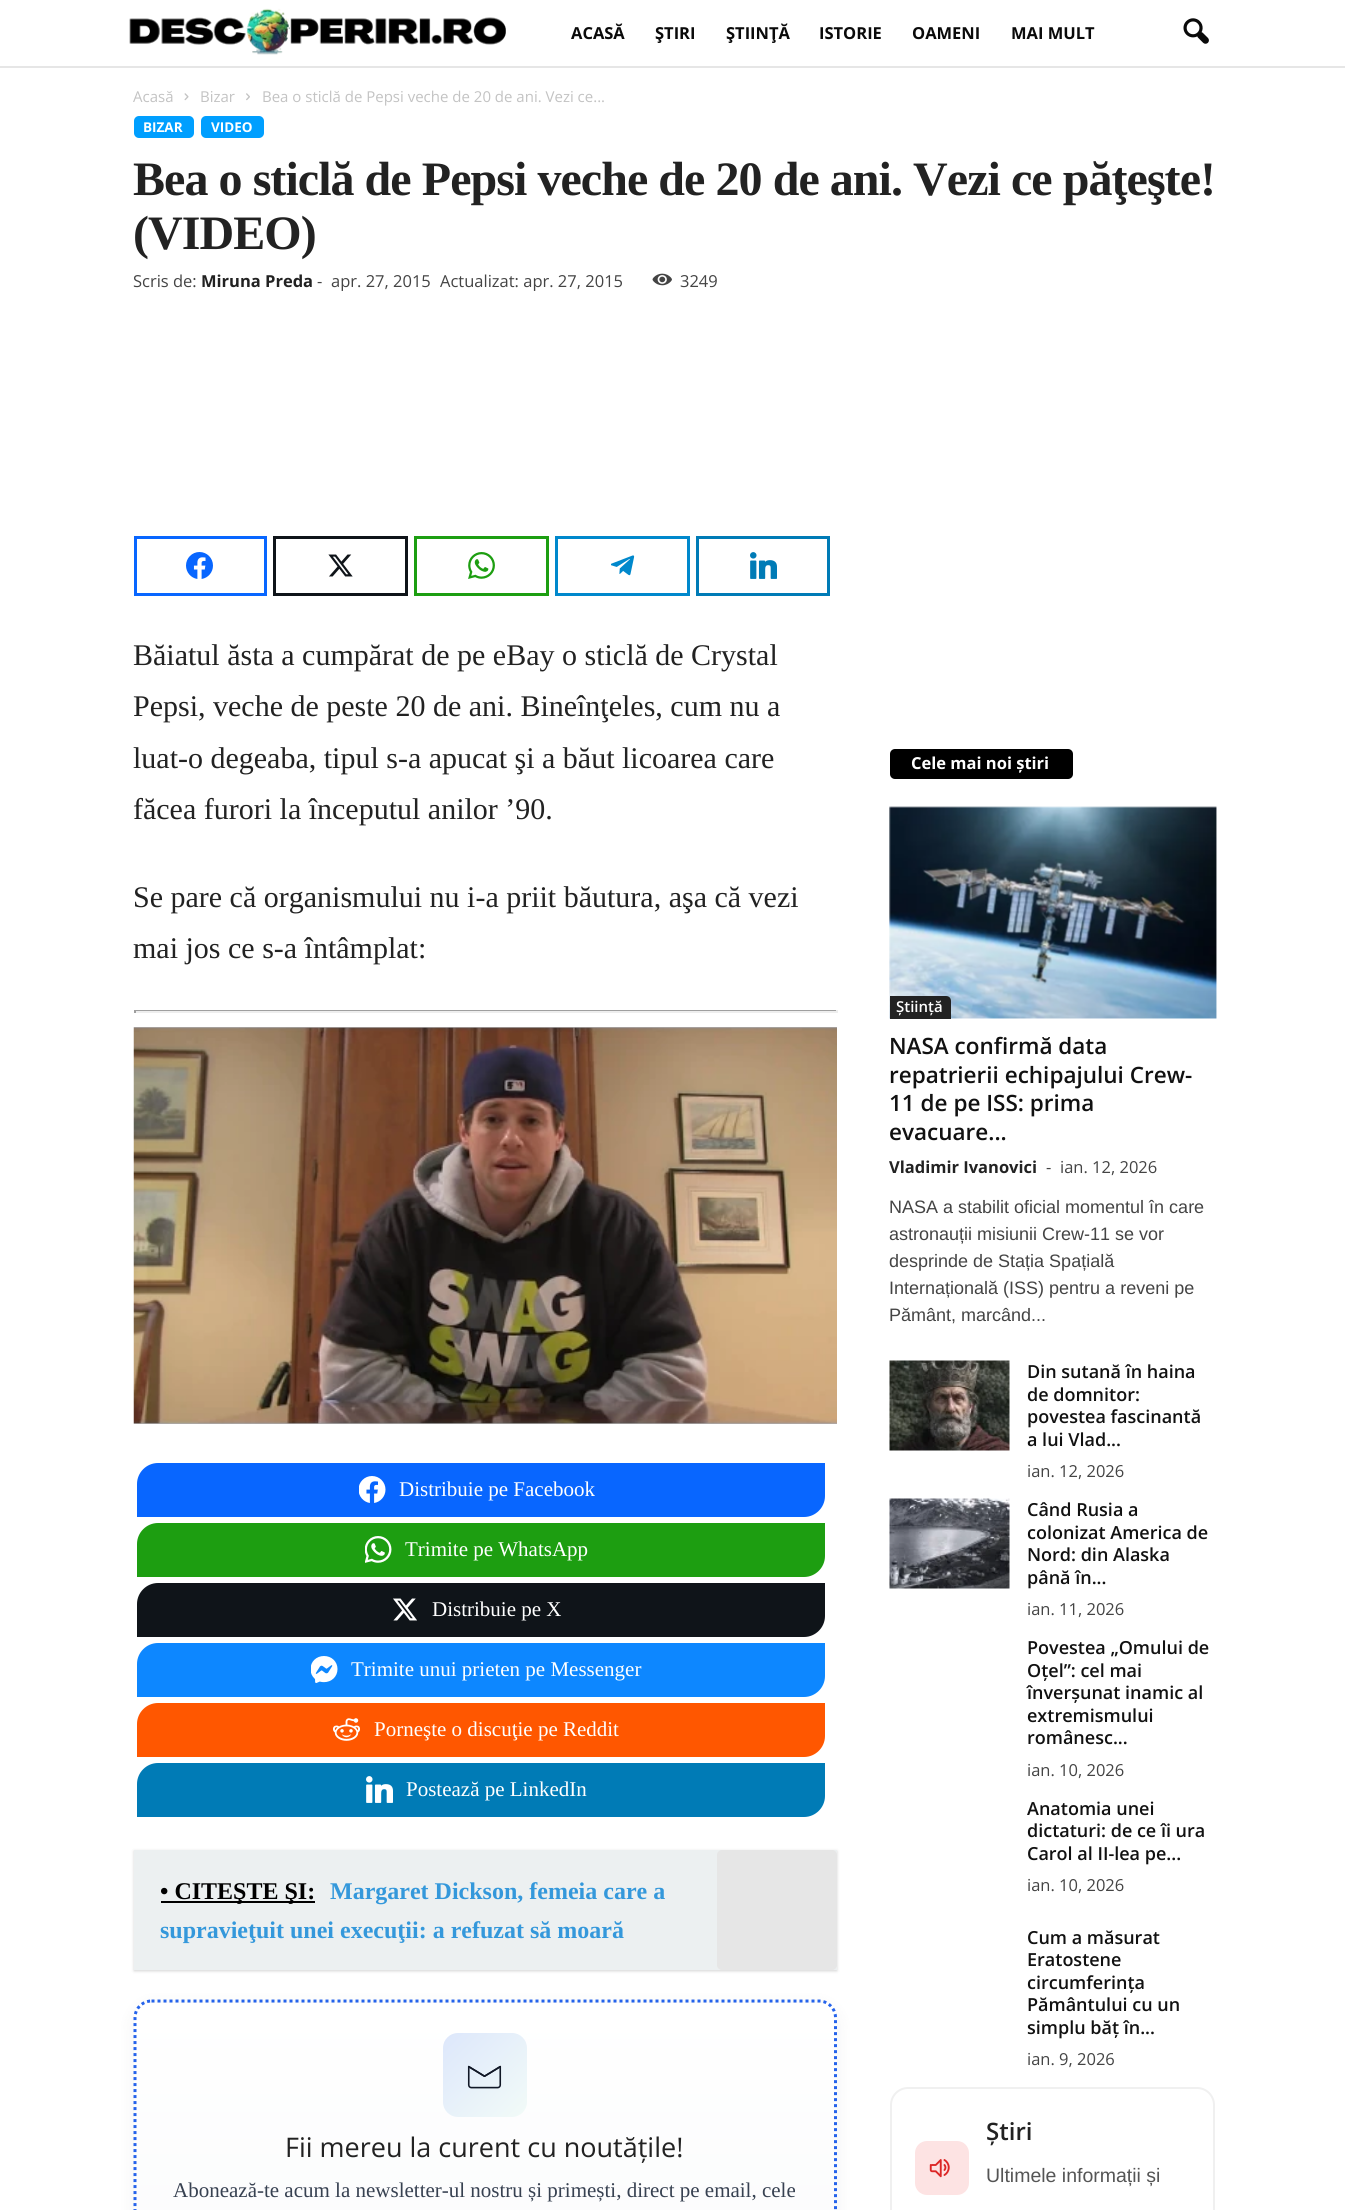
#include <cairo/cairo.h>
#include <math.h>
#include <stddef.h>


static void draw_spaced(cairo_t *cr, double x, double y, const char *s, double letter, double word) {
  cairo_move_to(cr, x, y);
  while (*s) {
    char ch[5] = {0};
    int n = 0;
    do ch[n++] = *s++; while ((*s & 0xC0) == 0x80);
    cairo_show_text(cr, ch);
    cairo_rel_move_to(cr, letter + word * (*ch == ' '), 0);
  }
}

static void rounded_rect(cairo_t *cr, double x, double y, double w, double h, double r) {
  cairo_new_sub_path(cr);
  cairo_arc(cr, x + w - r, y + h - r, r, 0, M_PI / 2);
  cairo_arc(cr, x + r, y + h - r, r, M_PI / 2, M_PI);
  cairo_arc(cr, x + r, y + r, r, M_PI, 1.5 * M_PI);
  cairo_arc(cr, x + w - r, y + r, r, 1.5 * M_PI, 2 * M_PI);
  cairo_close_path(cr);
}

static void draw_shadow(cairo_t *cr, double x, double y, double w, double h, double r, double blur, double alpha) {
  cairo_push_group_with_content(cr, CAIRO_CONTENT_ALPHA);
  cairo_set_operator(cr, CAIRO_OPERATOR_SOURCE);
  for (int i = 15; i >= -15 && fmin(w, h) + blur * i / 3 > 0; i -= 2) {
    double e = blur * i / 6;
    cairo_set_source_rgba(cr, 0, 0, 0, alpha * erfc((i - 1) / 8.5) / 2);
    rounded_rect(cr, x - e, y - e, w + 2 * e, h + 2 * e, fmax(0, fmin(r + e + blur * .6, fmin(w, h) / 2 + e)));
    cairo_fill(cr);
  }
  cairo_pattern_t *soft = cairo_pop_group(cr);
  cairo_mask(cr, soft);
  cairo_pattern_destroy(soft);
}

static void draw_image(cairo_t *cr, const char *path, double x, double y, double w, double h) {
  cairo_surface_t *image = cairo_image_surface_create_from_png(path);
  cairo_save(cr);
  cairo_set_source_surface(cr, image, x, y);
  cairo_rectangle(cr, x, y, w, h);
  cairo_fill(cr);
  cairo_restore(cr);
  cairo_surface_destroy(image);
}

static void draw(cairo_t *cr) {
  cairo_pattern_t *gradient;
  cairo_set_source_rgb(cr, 1, 1, 1);
  cairo_paint(cr);
  cairo_set_source_rgb(cr, 230 / 255.0, 230 / 255.0, 230 / 255.0);
  cairo_rectangle(cr, 0, 66, 1345, 2);
  cairo_fill(cr);
  draw_image(cr, "images/1.png", 129, 8, 377, 47);
  draw_image(cr, "images/2.png", 1183, 18, 26, 26);
  draw_image(cr, "images/3.png", 184, 93, 5, 8);
  draw_image(cr, "images/4.png", 246, 93, 4, 8);
  cairo_set_source_rgb(cr, 0, 159 / 255.0, 1);
  rounded_rect(cr, 134, 116, 60, 22, 5);
  cairo_fill(cr);
  rounded_rect(cr, 201, 116, 63, 22, 5);
  cairo_fill(cr);
  draw_image(cr, "images/5.png", 652, 273, 20, 13);
  cairo_rectangle(cr, 135.5, 537.5, 130, 57);
  cairo_set_source_rgb(cr, 8 / 255.0, 102 / 255.0, 1);
  cairo_set_line_width(cr, 3);
  cairo_stroke(cr);
  draw_image(cr, "images/6.png", 186, 552, 27, 27);
  cairo_rectangle(cr, 274.5, 537.5, 132, 57);
  cairo_set_source_rgb(cr, 15 / 255.0, 20 / 255.0, 25 / 255.0);
  cairo_stroke(cr);
  draw_image(cr, "images/7.png", 328, 554, 25, 23);
  cairo_rectangle(cr, 415.5, 537.5, 132, 57);
  cairo_set_source_rgb(cr, 29 / 255.0, 158 / 255.0, 17 / 255.0);
  cairo_stroke(cr);
  draw_image(cr, "images/8.png", 468, 552, 27, 27);
  cairo_rectangle(cr, 556.5, 537.5, 132, 57);
  cairo_set_source_rgb(cr, 0, 136 / 255.0, 204 / 255.0);
  cairo_stroke(cr);
  draw_image(cr, "images/9.png", 611, 555, 24, 21);
  cairo_rectangle(cr, 697.5, 537.5, 131, 57);
  cairo_set_source_rgb(cr, 0, 123 / 255.0, 182 / 255.0);
  cairo_stroke(cr);
  draw_image(cr, "images/10.png", 750, 552, 27, 27);
  cairo_set_source_rgb(cr, 159 / 255.0, 159 / 255.0, 159 / 255.0);
  cairo_rectangle(cr, 134, 1010, 703, 1);
  cairo_fill(cr);
  cairo_set_source_rgb(cr, 238 / 255.0, 238 / 255.0, 238 / 255.0);
  cairo_rectangle(cr, 836, 1010, 2, 3);
  cairo_fill(cr);
  cairo_rectangle(cr, 134, 1011, 703, 2);
  cairo_fill(cr);
  cairo_set_source_rgb(cr, 159 / 255.0, 159 / 255.0, 159 / 255.0);
  cairo_rectangle(cr, 134, 1010, 2, 3);
  cairo_fill(cr);
  draw_image(cr, "images/11.png", 133, 1027, 704, 397);
  cairo_set_source_rgb(cr, 8 / 255.0, 102 / 255.0, 1);
  cairo_new_path(cr);
  cairo_move_to(cr, 158, 1463);
  cairo_line_to(cr, 825, 1463);
  cairo_line_to(cr, 825, 1496);
  cairo_curve_to(cr, 825, 1507.5, 815.5, 1517, 804, 1517);
  cairo_line_to(cr, 137, 1517);
  cairo_line_to(cr, 137, 1484);
  cairo_curve_to(cr, 137, 1472.5, 146.5, 1463, 158, 1463);
  cairo_close_path(cr);
  cairo_fill(cr);
  draw_image(cr, "images/12.png", 359, 1476, 27, 27);
  cairo_set_source_rgb(cr, 29 / 255.0, 158 / 255.0, 17 / 255.0);
  cairo_new_path(cr);
  cairo_move_to(cr, 158, 1523);
  cairo_line_to(cr, 825, 1523);
  cairo_line_to(cr, 825, 1556);
  cairo_curve_to(cr, 825, 1567.5, 815.5, 1577, 804, 1577);
  cairo_line_to(cr, 137, 1577);
  cairo_line_to(cr, 137, 1544);
  cairo_curve_to(cr, 137, 1532.5, 146.5, 1523, 158, 1523);
  cairo_close_path(cr);
  cairo_fill(cr);
  draw_image(cr, "images/13.png", 365, 1536, 27, 27);
  cairo_set_source_rgb(cr, 15 / 255.0, 20 / 255.0, 25 / 255.0);
  cairo_new_path(cr);
  cairo_move_to(cr, 158, 1583);
  cairo_line_to(cr, 825, 1583);
  cairo_line_to(cr, 825, 1616);
  cairo_curve_to(cr, 825, 1627.5, 815.5, 1637, 804, 1637);
  cairo_line_to(cr, 137, 1637);
  cairo_line_to(cr, 137, 1604);
  cairo_curve_to(cr, 137, 1592.5, 146.5, 1583, 158, 1583);
  cairo_close_path(cr);
  cairo_fill(cr);
  draw_image(cr, "images/14.png", 393, 1598, 24, 23);
  cairo_set_source_rgb(cr, 13 / 255.0, 135 / 255.0, 1);
  cairo_new_path(cr);
  cairo_move_to(cr, 158, 1643);
  cairo_line_to(cr, 825, 1643);
  cairo_line_to(cr, 825, 1676);
  cairo_curve_to(cr, 825, 1687.5, 815.5, 1697, 804, 1697);
  cairo_line_to(cr, 137, 1697);
  cairo_line_to(cr, 137, 1664);
  cairo_curve_to(cr, 137, 1652.5, 146.5, 1643, 158, 1643);
  cairo_close_path(cr);
  cairo_fill(cr);
  draw_image(cr, "images/15.png", 311, 1656, 27, 27);
  cairo_set_source_rgb(cr, 1, 87 / 255.0, 0);
  cairo_new_path(cr);
  cairo_move_to(cr, 158, 1703);
  cairo_line_to(cr, 825, 1703);
  cairo_line_to(cr, 825, 1736);
  cairo_curve_to(cr, 825, 1747.5, 815.5, 1757, 804, 1757);
  cairo_line_to(cr, 137, 1757);
  cairo_line_to(cr, 137, 1724);
  cairo_curve_to(cr, 137, 1712.5, 146.5, 1703, 158, 1703);
  cairo_close_path(cr);
  cairo_fill(cr);
  draw_image(cr, "images/16.png", 333, 1718, 27, 23);
  cairo_set_source_rgb(cr, 0, 123 / 255.0, 182 / 255.0);
  cairo_new_path(cr);
  cairo_move_to(cr, 158, 1763);
  cairo_line_to(cr, 825, 1763);
  cairo_line_to(cr, 825, 1796);
  cairo_curve_to(cr, 825, 1807.5, 815.5, 1817, 804, 1817);
  cairo_line_to(cr, 137, 1817);
  cairo_line_to(cr, 137, 1784);
  cairo_curve_to(cr, 137, 1772.5, 146.5, 1763, 158, 1763);
  cairo_close_path(cr);
  cairo_fill(cr);
  draw_image(cr, "images/17.png", 366, 1776, 27, 27);
  cairo_set_source_rgb(cr, 0, 0, 0);
  draw_shadow(cr, 134, 1851, 703, 120, 0, 1.5, 0.17);
  cairo_set_source_rgb(cr, 236 / 255.0, 240 / 255.0, 241 / 255.0);
  cairo_rectangle(cr, 134, 1850, 703, 120);
  cairo_fill(cr);
  cairo_set_source_rgb(cr, 0, 0, 0);
  cairo_rectangle(cr, 161, 1901, 154, 2);
  cairo_fill(cr);
  cairo_set_source_rgb(cr, 230 / 255.0, 230 / 255.0, 230 / 255.0);
  rounded_rect(cr, 717, 1850, 120, 120, 5);
  cairo_fill(cr);
  cairo_set_source_rgb(cr, 17 / 255.0, 24 / 255.0, 39 / 255.0);
  draw_shadow(cr, 134, 2006, 703, 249, 18, 9, 0.06);
  cairo_save(cr);
  rounded_rect(cr, 134, 2000, 703, 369, 18);
  cairo_clip(cr);
  gradient = cairo_pattern_create_linear(485, 1640, 485, 2003);
  cairo_pattern_add_color_stop_rgba(gradient, 0, 1, 1, 1, 1);
  cairo_pattern_add_color_stop_rgba(gradient, 1, 249 / 255.0, 250 / 255.0, 251 / 255.0, 1);
  cairo_set_source(cr, gradient);
  cairo_pattern_destroy(gradient);
  cairo_rectangle(cr, 134, 2000, 703, 3);
  cairo_fill(cr);
  gradient = cairo_pattern_create_linear(485, 2003, 485, 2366);
  cairo_pattern_add_color_stop_rgba(gradient, 0, 1, 1, 1, 1);
  cairo_pattern_add_color_stop_rgba(gradient, 1, 249 / 255.0, 250 / 255.0, 251 / 255.0, 1);
  cairo_set_source(cr, gradient);
  cairo_pattern_destroy(gradient);
  cairo_rectangle(cr, 134, 2003, 703, 207);
  cairo_fill(cr);
  cairo_restore(cr);
  cairo_new_path(cr);
  cairo_move_to(cr, 151.5, 2001);
  cairo_line_to(cr, 819, 2001);
  cairo_curve_to(cr, 828, 2001, 835.5, 2008.5, 835.5, 2017.5);
  cairo_line_to(cr, 835.5, 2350.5);
  cairo_curve_to(cr, 835.5, 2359.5, 828, 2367, 819, 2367);
  cairo_line_to(cr, 151.5, 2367);
  cairo_curve_to(cr, 142.5, 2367, 135, 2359.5, 135, 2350.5);
  cairo_line_to(cr, 135, 2017.5);
  cairo_curve_to(cr, 135, 2008.5, 142.5, 2001, 151.5, 2001);
  cairo_close_path(cr);
  cairo_set_source_rgb(cr, 37 / 255.0, 99 / 255.0, 235 / 255.0);
  cairo_set_dash(cr, (double[]){3, 3}, 2, 0);
  cairo_stroke(cr);
  gradient = cairo_pattern_create_linear(443, 2033, 527, 2117);
  cairo_pattern_add_color_stop_rgba(gradient, 0, 221 / 255.0, 231 / 255.0, 251 / 255.0, 1);
  cairo_pattern_add_color_stop_rgba(gradient, 1, 242 / 255.0, 251 / 255.0, 248 / 255.0, 1);
  cairo_set_source(cr, gradient);
  cairo_pattern_destroy(gradient);
  rounded_rect(cr, 443, 2033, 84, 84, 15);
  cairo_fill(cr);
  draw_image(cr, "images/18.png", 467, 2065, 35, 24);
  cairo_set_source_rgb(cr, 0, 0, 0);
  rounded_rect(cr, 890, 749, 183, 30, 5);
  cairo_fill(cr);
  draw_image(cr, "images/19.png", 889, 806, 328, 213);
  cairo_set_source_rgb(cr, 34 / 255.0, 34 / 255.0, 34 / 255.0);
  cairo_new_path(cr);
  cairo_move_to(cr, 890, 996);
  cairo_line_to(cr, 946, 996);
  cairo_curve_to(cr, 949, 996, 951, 998, 951, 1001);
  cairo_line_to(cr, 951, 1019);
  cairo_line_to(cr, 890, 1019);
  cairo_close_path(cr);
  cairo_fill(cr);
  draw_image(cr, "images/20.png", 889, 1360, 121, 91);
  draw_image(cr, "images/21.png", 889, 1498, 121, 91);
  rounded_rect(cr, 891, 2088, 323, 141, 17);
  cairo_set_source_rgb(cr, 240 / 255.0, 240 / 255.0, 240 / 255.0);
  cairo_set_line_width(cr, 2);
  cairo_set_dash(cr, NULL, 0, 0);
  cairo_stroke(cr);
  cairo_set_source_rgb(cr, 253 / 255.0, 227 / 255.0, 227 / 255.0);
  rounded_rect(cr, 915, 2141, 54, 54, 12);
  cairo_fill(cr);
  draw_image(cr, "images/22.png", 929, 2159, 21, 19);
  cairo_select_font_face(cr, "Open Sans", CAIRO_FONT_SLANT_NORMAL, CAIRO_FONT_WEIGHT_BOLD);
  cairo_set_font_size(cr, 16.5);
  cairo_set_source_rgb(cr, 10 / 255.0, 10 / 255.0, 10 / 255.0);
  cairo_move_to(cr, 571, 39);
  cairo_show_text(cr, "ACASĂ");
  cairo_move_to(cr, 655, 39);
  cairo_show_text(cr, "ŞTIRI");
  cairo_move_to(cr, 726, 39);
  cairo_show_text(cr, "ŞTIINŢĂ");
  cairo_move_to(cr, 819, 39);
  cairo_show_text(cr, "ISTORIE");
  cairo_move_to(cr, 912, 39);
  cairo_show_text(cr, "OAMENI");
  cairo_move_to(cr, 1011, 39);
  cairo_show_text(cr, "MAI MULT");
  cairo_select_font_face(cr, "Open Sans", CAIRO_FONT_SLANT_NORMAL, CAIRO_FONT_WEIGHT_NORMAL);
  cairo_set_font_size(cr, 15);
  cairo_set_source_rgb(cr, 195 / 255.0, 195 / 255.0, 195 / 255.0);
  cairo_move_to(cr, 133, 102);
  cairo_show_text(cr, "Acasă");
  cairo_move_to(cr, 200, 102);
  cairo_show_text(cr, "Bizar");
  cairo_move_to(cr, 262, 102);
  cairo_show_text(cr, "Bea o sticlă de Pepsi veche de 20 de ani. Vezi ce...");
  cairo_select_font_face(cr, "Open Sans", CAIRO_FONT_SLANT_NORMAL, CAIRO_FONT_WEIGHT_BOLD);
  cairo_set_font_size(cr, 13.5);
  cairo_set_source_rgb(cr, 1, 1, 1);
  cairo_move_to(cr, 143, 132);
  cairo_show_text(cr, "BIZAR");
  cairo_move_to(cr, 211, 132);
  cairo_show_text(cr, "VIDEO");
  cairo_select_font_face(cr, "Liberation Serif", CAIRO_FONT_SLANT_NORMAL, CAIRO_FONT_WEIGHT_BOLD);
  cairo_set_font_size(cr, 48);
  cairo_set_source_rgb(cr, 34 / 255.0, 34 / 255.0, 34 / 255.0);
  draw_spaced(cr, 133, 195, "Bea o sticlă de Pepsi veche de 20 de ani. Vezi ce păţeşte!", -0.95, 0);
  draw_spaced(cr, 133, 249, "(VIDEO)", -0.95, 0);
  cairo_select_font_face(cr, "Open Sans", CAIRO_FONT_SLANT_NORMAL, CAIRO_FONT_WEIGHT_NORMAL);
  cairo_set_font_size(cr, 16.5);
  cairo_set_source_rgb(cr, 68 / 255.0, 68 / 255.0, 68 / 255.0);
  cairo_move_to(cr, 133, 287);
  cairo_show_text(cr, "Scris de:");
  cairo_select_font_face(cr, "Open Sans", CAIRO_FONT_SLANT_NORMAL, CAIRO_FONT_WEIGHT_BOLD);
  cairo_set_source_rgb(cr, 34 / 255.0, 34 / 255.0, 34 / 255.0);
  cairo_move_to(cr, 201, 287);
  cairo_show_text(cr, "Miruna Preda");
  cairo_select_font_face(cr, "Open Sans", CAIRO_FONT_SLANT_NORMAL, CAIRO_FONT_WEIGHT_NORMAL);
  cairo_set_source_rgb(cr, 68 / 255.0, 68 / 255.0, 68 / 255.0);
  cairo_move_to(cr, 317, 287);
  cairo_show_text(cr, "-");
  cairo_move_to(cr, 331, 287);
  cairo_show_text(cr, "apr. 27, 2015");
  cairo_move_to(cr, 440, 287);
  cairo_show_text(cr, "Actualizat: apr. 27, 2015");
  cairo_move_to(cr, 680, 287);
  cairo_show_text(cr, "3249");
  cairo_select_font_face(cr, "Liberation Serif", CAIRO_FONT_SLANT_NORMAL, CAIRO_FONT_WEIGHT_NORMAL);
  cairo_set_font_size(cr, 30);
  cairo_set_source_rgb(cr, 34 / 255.0, 34 / 255.0, 34 / 255.0);
  cairo_move_to(cr, 133, 665);
  cairo_show_text(cr, "Băiatul ăsta a cumpărat de pe eBay o sticlă de Crystal");
  cairo_move_to(cr, 133, 716);
  cairo_show_text(cr, "Pepsi, veche de peste 20 de ani. Bineînţeles, cum nu a");
  cairo_move_to(cr, 133, 768);
  cairo_show_text(cr, "luat-o degeaba, tipul s-a apucat şi a băut licoarea care");
  cairo_move_to(cr, 133, 819);
  cairo_show_text(cr, "făcea furori la începutul anilor ’90.");
  cairo_move_to(cr, 133, 907);
  cairo_show_text(cr, "Se pare că organismului nu i-a priit băutura, aşa că vezi");
  cairo_move_to(cr, 133, 958);
  cairo_show_text(cr, "mai jos ce s-a întâmplat:");
  cairo_set_font_size(cr, 21);
  cairo_set_source_rgb(cr, 1, 1, 1);
  cairo_move_to(cr, 399, 1496);
  cairo_show_text(cr, "Distribuie pe Facebook");
  cairo_move_to(cr, 405, 1556);
  cairo_show_text(cr, "Trimite pe WhatsApp");
  cairo_move_to(cr, 432, 1616);
  cairo_show_text(cr, "Distribuie pe X");
  cairo_move_to(cr, 351, 1676);
  cairo_show_text(cr, "Trimite unui prieten pe Messenger");
  cairo_move_to(cr, 374, 1736);
  cairo_show_text(cr, "Porneşte o discuţie pe Reddit");
  cairo_move_to(cr, 406, 1796);
  cairo_show_text(cr, "Postează pe LinkedIn");
  cairo_select_font_face(cr, "Liberation Serif", CAIRO_FONT_SLANT_NORMAL, CAIRO_FONT_WEIGHT_BOLD);
  cairo_set_font_size(cr, 24);
  cairo_set_source_rgb(cr, 0, 0, 0);
  cairo_move_to(cr, 160, 1899);
  cairo_show_text(cr, "• CITEŞTE ŞI:");
  cairo_set_source_rgb(cr, 52 / 255.0, 152 / 255.0, 219 / 255.0);
  cairo_move_to(cr, 330, 1899);
  cairo_show_text(cr, "Margaret Dickson, femeia care a");
  cairo_move_to(cr, 160, 1938);
  cairo_show_text(cr, "supravieţuit unei execuţii: a refuzat să moară");
  cairo_select_font_face(cr, "Open Sans", CAIRO_FONT_SLANT_NORMAL, CAIRO_FONT_WEIGHT_NORMAL);
  cairo_set_font_size(cr, 27);
  cairo_set_source_rgb(cr, 34 / 255.0, 34 / 255.0, 34 / 255.0);
  cairo_move_to(cr, 285, 2157);
  cairo_show_text(cr, "Fii mereu la curent cu noutățile!");
  cairo_select_font_face(cr, "Liberation Serif", CAIRO_FONT_SLANT_NORMAL, CAIRO_FONT_WEIGHT_NORMAL);
  cairo_set_font_size(cr, 21);
  cairo_set_source_rgb(cr, 55 / 255.0, 65 / 255.0, 81 / 255.0);
  cairo_move_to(cr, 173, 2197);
  cairo_show_text(cr, "Abonează-te acum la newsletter-ul nostru și primești, direct pe email, cele");
  cairo_select_font_face(cr, "Open Sans", CAIRO_FONT_SLANT_NORMAL, CAIRO_FONT_WEIGHT_BOLD);
  cairo_set_font_size(cr, 16.5);
  cairo_set_source_rgb(cr, 1, 1, 1);
  cairo_move_to(cr, 911, 769);
  cairo_show_text(cr, "Cele mai noi știri");
  cairo_select_font_face(cr, "Open Sans SemiBold", CAIRO_FONT_SLANT_NORMAL, CAIRO_FONT_WEIGHT_NORMAL);
  cairo_set_font_size(cr, 15);
  cairo_move_to(cr, 896, 1012);
  cairo_show_text(cr, "Știință");
  cairo_set_font_size(cr, 22.5);
  cairo_set_source_rgb(cr, 17 / 255.0, 17 / 255.0, 17 / 255.0);
  cairo_move_to(cr, 889, 1054);
  cairo_show_text(cr, "NASA confirmă data");
  cairo_move_to(cr, 889, 1083);
  cairo_show_text(cr, "repatrierii echipajului Crew-");
  cairo_move_to(cr, 889, 1111);
  cairo_show_text(cr, "11 de pe ISS: prima");
  cairo_move_to(cr, 889, 1140);
  cairo_show_text(cr, "evacuare...");
  cairo_select_font_face(cr, "Open Sans", CAIRO_FONT_SLANT_NORMAL, CAIRO_FONT_WEIGHT_BOLD);
  cairo_set_font_size(cr, 16.5);
  cairo_set_source_rgb(cr, 34 / 255.0, 34 / 255.0, 34 / 255.0);
  cairo_move_to(cr, 889, 1173);
  cairo_show_text(cr, "Vladimir Ivanovici");
  cairo_select_font_face(cr, "Open Sans", CAIRO_FONT_SLANT_NORMAL, CAIRO_FONT_WEIGHT_NORMAL);
  cairo_set_source_rgb(cr, 68 / 255.0, 68 / 255.0, 68 / 255.0);
  cairo_move_to(cr, 1046, 1173);
  cairo_show_text(cr, "-");
  cairo_move_to(cr, 1060, 1173);
  cairo_show_text(cr, "ian. 12, 2026");
  cairo_select_font_face(cr, "Liberation Sans", CAIRO_FONT_SLANT_NORMAL, CAIRO_FONT_WEIGHT_NORMAL);
  cairo_set_font_size(cr, 18);
  cairo_move_to(cr, 889, 1213);
  cairo_show_text(cr, "NASA a stabilit oficial momentul în care");
  cairo_move_to(cr, 889, 1240);
  cairo_show_text(cr, "astronauții misiunii Crew-11 se vor");
  cairo_move_to(cr, 889, 1267);
  cairo_show_text(cr, "desprinde de Stația Spațială");
  cairo_move_to(cr, 889, 1294);
  cairo_show_text(cr, "Internațională (ISS) pentru a reveni pe");
  cairo_move_to(cr, 889, 1321);
  cairo_show_text(cr, "Pământ, marcând...");
  cairo_select_font_face(cr, "Open Sans SemiBold", CAIRO_FONT_SLANT_NORMAL, CAIRO_FONT_WEIGHT_NORMAL);
  cairo_set_source_rgb(cr, 17 / 255.0, 17 / 255.0, 17 / 255.0);
  cairo_move_to(cr, 1027, 1378);
  cairo_show_text(cr, "Din sutană în haina");
  cairo_move_to(cr, 1027, 1401);
  cairo_show_text(cr, "de domnitor:");
  cairo_move_to(cr, 1027, 1423);
  cairo_show_text(cr, "povestea fascinantă");
  cairo_move_to(cr, 1027, 1446);
  cairo_show_text(cr, "a lui Vlad...");
  cairo_select_font_face(cr, "Open Sans", CAIRO_FONT_SLANT_NORMAL, CAIRO_FONT_WEIGHT_NORMAL);
  cairo_set_font_size(cr, 16.5);
  cairo_set_source_rgb(cr, 68 / 255.0, 68 / 255.0, 68 / 255.0);
  cairo_move_to(cr, 1027, 1477);
  cairo_show_text(cr, "ian. 12, 2026");
  cairo_select_font_face(cr, "Open Sans SemiBold", CAIRO_FONT_SLANT_NORMAL, CAIRO_FONT_WEIGHT_NORMAL);
  cairo_set_font_size(cr, 18);
  cairo_set_source_rgb(cr, 17 / 255.0, 17 / 255.0, 17 / 255.0);
  cairo_move_to(cr, 1027, 1516);
  cairo_show_text(cr, "Când Rusia a");
  cairo_move_to(cr, 1027, 1539);
  cairo_show_text(cr, "colonizat America de");
  cairo_move_to(cr, 1027, 1561);
  cairo_show_text(cr, "Nord: din Alaska");
  cairo_move_to(cr, 1027, 1584);
  cairo_show_text(cr, "până în...");
  cairo_select_font_face(cr, "Open Sans", CAIRO_FONT_SLANT_NORMAL, CAIRO_FONT_WEIGHT_NORMAL);
  cairo_set_font_size(cr, 16.5);
  cairo_set_source_rgb(cr, 68 / 255.0, 68 / 255.0, 68 / 255.0);
  cairo_move_to(cr, 1027, 1615);
  cairo_show_text(cr, "ian. 11, 2026");
  cairo_select_font_face(cr, "Open Sans SemiBold", CAIRO_FONT_SLANT_NORMAL, CAIRO_FONT_WEIGHT_NORMAL);
  cairo_set_font_size(cr, 18);
  cairo_set_source_rgb(cr, 17 / 255.0, 17 / 255.0, 17 / 255.0);
  cairo_move_to(cr, 1027, 1654);
  cairo_show_text(cr, "Povestea „Omului de");
  cairo_move_to(cr, 1027, 1677);
  cairo_show_text(cr, "Oțel”: cel mai");
  cairo_move_to(cr, 1027, 1699);
  cairo_show_text(cr, "înverșunat inamic al");
  cairo_move_to(cr, 1027, 1722);
  cairo_show_text(cr, "extremismului");
  cairo_move_to(cr, 1027, 1744);
  cairo_show_text(cr, "românesc...");
  cairo_select_font_face(cr, "Open Sans", CAIRO_FONT_SLANT_NORMAL, CAIRO_FONT_WEIGHT_NORMAL);
  cairo_set_font_size(cr, 16.5);
  cairo_set_source_rgb(cr, 68 / 255.0, 68 / 255.0, 68 / 255.0);
  cairo_move_to(cr, 1027, 1776);
  cairo_show_text(cr, "ian. 10, 2026");
  cairo_select_font_face(cr, "Open Sans SemiBold", CAIRO_FONT_SLANT_NORMAL, CAIRO_FONT_WEIGHT_NORMAL);
  cairo_set_font_size(cr, 18);
  cairo_set_source_rgb(cr, 17 / 255.0, 17 / 255.0, 17 / 255.0);
  cairo_move_to(cr, 1027, 1815);
  cairo_show_text(cr, "Anatomia unei");
  cairo_move_to(cr, 1027, 1837);
  cairo_show_text(cr, "dictaturi: de ce îi ura");
  cairo_move_to(cr, 1027, 1860);
  cairo_show_text(cr, "Carol al II-lea pe...");
  cairo_select_font_face(cr, "Open Sans", CAIRO_FONT_SLANT_NORMAL, CAIRO_FONT_WEIGHT_NORMAL);
  cairo_set_font_size(cr, 16.5);
  cairo_set_source_rgb(cr, 68 / 255.0, 68 / 255.0, 68 / 255.0);
  cairo_move_to(cr, 1027, 1891);
  cairo_show_text(cr, "ian. 10, 2026");
  cairo_select_font_face(cr, "Open Sans SemiBold", CAIRO_FONT_SLANT_NORMAL, CAIRO_FONT_WEIGHT_NORMAL);
  cairo_set_font_size(cr, 18);
  cairo_set_source_rgb(cr, 17 / 255.0, 17 / 255.0, 17 / 255.0);
  cairo_move_to(cr, 1027, 1944);
  cairo_show_text(cr, "Cum a măsurat");
  cairo_move_to(cr, 1027, 1966);
  cairo_show_text(cr, "Eratostene");
  cairo_move_to(cr, 1027, 1989);
  cairo_show_text(cr, "circumferința");
  cairo_move_to(cr, 1027, 2011);
  cairo_show_text(cr, "Pământului cu un");
  cairo_move_to(cr, 1027, 2034);
  cairo_show_text(cr, "simplu băț în...");
  cairo_select_font_face(cr, "Open Sans", CAIRO_FONT_SLANT_NORMAL, CAIRO_FONT_WEIGHT_NORMAL);
  cairo_set_font_size(cr, 16.5);
  cairo_set_source_rgb(cr, 68 / 255.0, 68 / 255.0, 68 / 255.0);
  cairo_move_to(cr, 1027, 2065);
  cairo_show_text(cr, "ian. 9, 2026");
  cairo_select_font_face(cr, "Open Sans SemiBold", CAIRO_FONT_SLANT_NORMAL, CAIRO_FONT_WEIGHT_NORMAL);
  cairo_set_font_size(cr, 24);
  cairo_set_source_rgb(cr, 34 / 255.0, 34 / 255.0, 34 / 255.0);
  cairo_move_to(cr, 986, 2140);
  cairo_show_text(cr, "Știri");
  cairo_select_font_face(cr, "Liberation Sans", CAIRO_FONT_SLANT_NORMAL, CAIRO_FONT_WEIGHT_NORMAL);
  cairo_set_font_size(cr, 19.5);
  cairo_set_source_rgb(cr, 85 / 255.0, 85 / 255.0, 85 / 255.0);
  cairo_move_to(cr, 986, 2182);
  cairo_show_text(cr, "Ultimele informații și");
}

int main(void) {
  cairo_surface_t *surface = cairo_image_surface_create(CAIRO_FORMAT_RGB24, 1345, 2210);
  cairo_t *cr = cairo_create(surface);
  cairo_font_options_t *options = cairo_font_options_create();
  cairo_font_options_set_hint_metrics(options, CAIRO_HINT_METRICS_OFF);
  cairo_font_options_set_hint_style(options, CAIRO_HINT_STYLE_NONE);
  cairo_set_font_options(cr, options);
  cairo_set_miter_limit(cr, 4);
  draw(cr);
  cairo_surface_write_to_png(surface, "out.png");
  cairo_font_options_destroy(options);
  cairo_destroy(cr);
  cairo_surface_destroy(surface);
  return 0;
}
